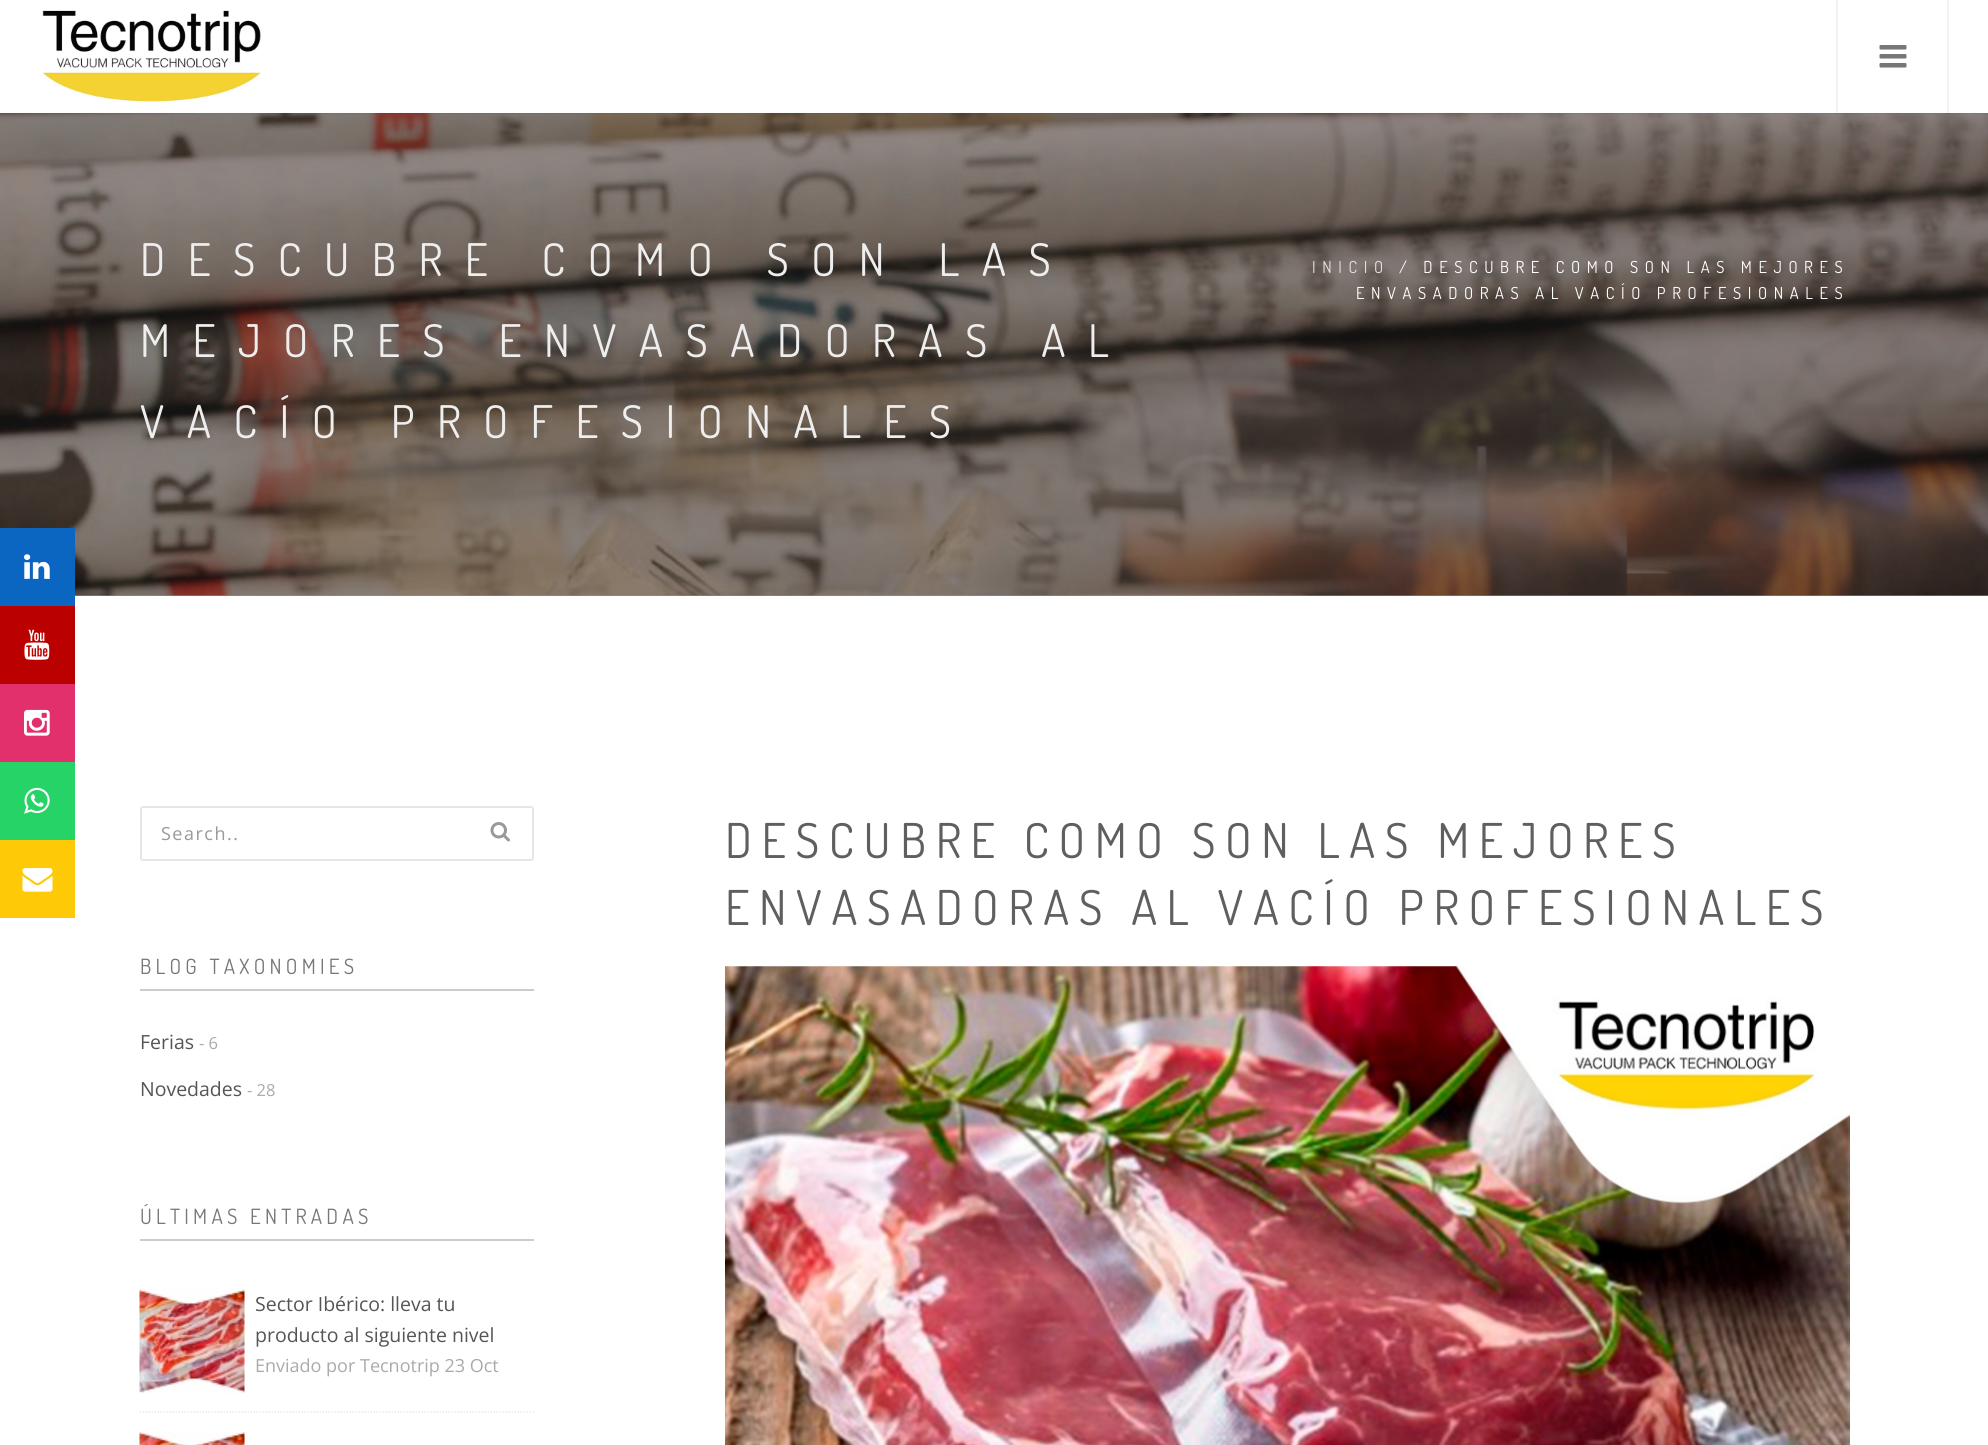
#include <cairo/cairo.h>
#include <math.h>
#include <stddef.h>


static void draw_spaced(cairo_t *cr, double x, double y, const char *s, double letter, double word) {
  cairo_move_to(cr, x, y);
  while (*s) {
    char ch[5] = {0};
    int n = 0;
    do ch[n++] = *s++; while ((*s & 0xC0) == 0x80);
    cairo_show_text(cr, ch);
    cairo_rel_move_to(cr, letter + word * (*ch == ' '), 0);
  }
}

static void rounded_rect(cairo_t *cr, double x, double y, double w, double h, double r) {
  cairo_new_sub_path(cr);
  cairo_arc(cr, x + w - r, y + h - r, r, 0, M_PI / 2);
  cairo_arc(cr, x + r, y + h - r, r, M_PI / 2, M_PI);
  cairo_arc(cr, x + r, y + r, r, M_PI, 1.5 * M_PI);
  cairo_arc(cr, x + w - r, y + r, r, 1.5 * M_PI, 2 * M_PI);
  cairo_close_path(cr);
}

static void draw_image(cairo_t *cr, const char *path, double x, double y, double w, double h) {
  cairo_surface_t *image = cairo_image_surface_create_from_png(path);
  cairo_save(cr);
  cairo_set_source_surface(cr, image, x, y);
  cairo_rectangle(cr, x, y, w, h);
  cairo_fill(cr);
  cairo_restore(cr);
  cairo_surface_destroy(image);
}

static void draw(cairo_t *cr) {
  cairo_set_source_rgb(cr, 1, 1, 1);
  cairo_paint(cr);
  cairo_set_source_rgb(cr, 145 / 255.0, 145 / 255.0, 145 / 255.0);
  cairo_rectangle(cr, 75, 595, 1913, 1);
  cairo_fill(cr);
  draw_image(cr, "images/3.png", 0, 112, 1988, 484);
  cairo_set_source_rgba(cr, 0, 0, 0, 0.05);
  cairo_rectangle(cr, 0, 112, 1988, 2);
  cairo_fill(cr);
  cairo_set_source_rgba(cr, 1, 1, 1, 0.97);
  cairo_rectangle(cr, 0, 112, 1988, 1);
  cairo_fill(cr);
  draw_image(cr, "images/1.png", 42, 10, 219, 92);
  cairo_set_source_rgb(cr, 242 / 255.0, 242 / 255.0, 242 / 255.0);
  cairo_rectangle(cr, 1947, 0, 2, 113);
  cairo_fill(cr);
  cairo_rectangle(cr, 1836, 0, 2, 113);
  cairo_fill(cr);
  draw_image(cr, "images/2.png", 1879, 45, 28, 23);
  cairo_set_source_rgb(cr, 11 / 255.0, 102 / 255.0, 194 / 255.0);
  cairo_rectangle(cr, 0, 528, 75, 78);
  cairo_fill(cr);
  draw_image(cr, "images/4.png", 24, 554, 26, 25);
  cairo_set_source_rgb(cr, 187 / 255.0, 0, 0);
  cairo_rectangle(cr, 0, 606, 75, 78);
  cairo_fill(cr);
  draw_image(cr, "images/5.png", 24, 629, 26, 31);
  cairo_set_source_rgb(cr, 225 / 255.0, 48 / 255.0, 108 / 255.0);
  cairo_rectangle(cr, 0, 684, 75, 78);
  cairo_fill(cr);
  draw_image(cr, "images/6.png", 24, 709, 26, 27);
  cairo_set_source_rgb(cr, 37 / 255.0, 211 / 255.0, 102 / 255.0);
  cairo_rectangle(cr, 0, 762, 75, 78);
  cairo_fill(cr);
  draw_image(cr, "images/7.png", 24, 787, 26, 27);
  cairo_set_source_rgb(cr, 254 / 255.0, 202 / 255.0, 8 / 255.0);
  cairo_rectangle(cr, 0, 840, 75, 78);
  cairo_fill(cr);
  draw_image(cr, "images/8.png", 22, 868, 31, 24);
  rounded_rect(cr, 141, 807, 392, 53, 2);
  cairo_set_source_rgb(cr, 230 / 255.0, 230 / 255.0, 230 / 255.0);
  cairo_stroke(cr);
  draw_image(cr, "images/9.png", 490, 822, 20, 20);
  cairo_set_source_rgb(cr, 204 / 255.0, 204 / 255.0, 204 / 255.0);
  cairo_rectangle(cr, 140, 989, 394, 2);
  cairo_fill(cr);
  cairo_rectangle(cr, 140, 1239, 394, 2);
  cairo_fill(cr);
  cairo_new_path(cr);
  cairo_move_to(cr, 139.5, 1412);
  cairo_line_to(cr, 534, 1412);
  cairo_set_source_rgb(cr, 234 / 255.0, 234 / 255.0, 234 / 255.0);
  cairo_set_line_width(cr, 1.5);
  cairo_set_dash(cr, (double[]){1.5, 1.5}, 2, 0);
  cairo_stroke(cr);
  draw_image(cr, "images/10.png", 139, 1288, 106, 106);
  draw_image(cr, "images/11.png", 139, 1431, 106, 14);
  draw_image(cr, "images/12.png", 725, 966, 1125, 479);
  cairo_select_font_face(cr, "Dosis", CAIRO_FONT_SLANT_NORMAL, CAIRO_FONT_WEIGHT_NORMAL);
  cairo_set_font_size(cr, 45);
  cairo_set_source_rgb(cr, 239 / 255.0, 238 / 255.0, 238 / 255.0);
  draw_spaced(cr, 140, 276, "DESCUBRE COMO SON LAS", 22.5, 0);
  draw_spaced(cr, 140, 357, "MEJORES ENVASADORAS AL", 22.5, 0);
  draw_spaced(cr, 140, 438, "VACÍO PROFESIONALES", 22.5, 0);
  cairo_set_font_size(cr, 16.5);
  cairo_set_source_rgb(cr, 227 / 255.0, 225 / 255.0, 224 / 255.0);
  draw_spaced(cr, 1312, 273, "INICIO", 6.6, 0);
  cairo_set_source_rgb(cr, 1, 1, 1);
  draw_spaced(cr, 1399, 273, "/ DESCUBRE COMO SON LAS MEJORES", 6.6, 0);
  draw_spaced(cr, 1356, 299, "ENVASADORAS AL VACÍO PROFESIONALES", 6.6, 0);
  cairo_select_font_face(cr, "Open Sans", CAIRO_FONT_SLANT_NORMAL, CAIRO_FONT_WEIGHT_NORMAL);
  cairo_set_font_size(cr, 18);
  cairo_set_source_rgb(cr, 153 / 255.0, 153 / 255.0, 153 / 255.0);
  draw_spaced(cr, 161, 840, "Search..", 1.5, 0);
  cairo_select_font_face(cr, "Dosis", CAIRO_FONT_SLANT_NORMAL, CAIRO_FONT_WEIGHT_NORMAL);
  cairo_set_font_size(cr, 21);
  cairo_set_source_rgb(cr, 119 / 255.0, 119 / 255.0, 119 / 255.0);
  draw_spaced(cr, 140, 974, "BLOG TAXONOMIES", 4.25, 0);
  cairo_select_font_face(cr, "Open Sans", CAIRO_FONT_SLANT_NORMAL, CAIRO_FONT_WEIGHT_NORMAL);
  cairo_set_font_size(cr, 19.5);
  cairo_set_source_rgb(cr, 85 / 255.0, 85 / 255.0, 85 / 255.0);
  cairo_move_to(cr, 140, 1049);
  cairo_show_text(cr, "Ferias");
  cairo_set_font_size(cr, 16.5);
  cairo_set_source_rgb(cr, 170 / 255.0, 170 / 255.0, 170 / 255.0);
  cairo_move_to(cr, 199, 1049);
  cairo_show_text(cr, "- 6");
  cairo_set_font_size(cr, 19.5);
  cairo_set_source_rgb(cr, 85 / 255.0, 85 / 255.0, 85 / 255.0);
  cairo_move_to(cr, 140, 1096);
  cairo_show_text(cr, "Novedades");
  cairo_set_font_size(cr, 16.5);
  cairo_set_source_rgb(cr, 170 / 255.0, 170 / 255.0, 170 / 255.0);
  cairo_move_to(cr, 247, 1096);
  cairo_show_text(cr, "- 28");
  cairo_select_font_face(cr, "Dosis", CAIRO_FONT_SLANT_NORMAL, CAIRO_FONT_WEIGHT_NORMAL);
  cairo_set_font_size(cr, 21);
  cairo_set_source_rgb(cr, 119 / 255.0, 119 / 255.0, 119 / 255.0);
  draw_spaced(cr, 140, 1224, "ÚLTIMAS ENTRADAS", 4.25, 0);
  cairo_select_font_face(cr, "Open Sans", CAIRO_FONT_SLANT_NORMAL, CAIRO_FONT_WEIGHT_NORMAL);
  cairo_set_font_size(cr, 19.5);
  cairo_set_source_rgb(cr, 85 / 255.0, 85 / 255.0, 85 / 255.0);
  cairo_move_to(cr, 255, 1311);
  cairo_show_text(cr, "Sector Ibérico: lleva tu");
  cairo_move_to(cr, 255, 1342);
  cairo_show_text(cr, "producto al siguiente nivel");
  cairo_set_font_size(cr, 18);
  cairo_set_source_rgb(cr, 170 / 255.0, 170 / 255.0, 170 / 255.0);
  cairo_move_to(cr, 255, 1372);
  cairo_show_text(cr, "Enviado por Tecnotrip 23 Oct");
  cairo_select_font_face(cr, "Dosis", CAIRO_FONT_SLANT_NORMAL, CAIRO_FONT_WEIGHT_NORMAL);
  cairo_set_font_size(cr, 48);
  cairo_set_source_rgb(cr, 95 / 255.0, 95 / 255.0, 95 / 255.0);
  draw_spaced(cr, 725, 858, "DESCUBRE COMO SON LAS MEJORES", 9.6, 0);
  draw_spaced(cr, 725, 925, "ENVASADORAS AL VACÍO PROFESIONALES", 9.6, 0);
}

int main(void) {
  cairo_surface_t *surface = cairo_image_surface_create(CAIRO_FORMAT_RGB24, 1988, 1445);
  cairo_t *cr = cairo_create(surface);
  cairo_font_options_t *options = cairo_font_options_create();
  cairo_font_options_set_hint_metrics(options, CAIRO_HINT_METRICS_OFF);
  cairo_font_options_set_hint_style(options, CAIRO_HINT_STYLE_NONE);
  cairo_set_font_options(cr, options);
  cairo_set_miter_limit(cr, 4);
  draw(cr);
  cairo_surface_write_to_png(surface, "out.png");
  cairo_font_options_destroy(options);
  cairo_destroy(cr);
  cairo_surface_destroy(surface);
  return 0;
}
